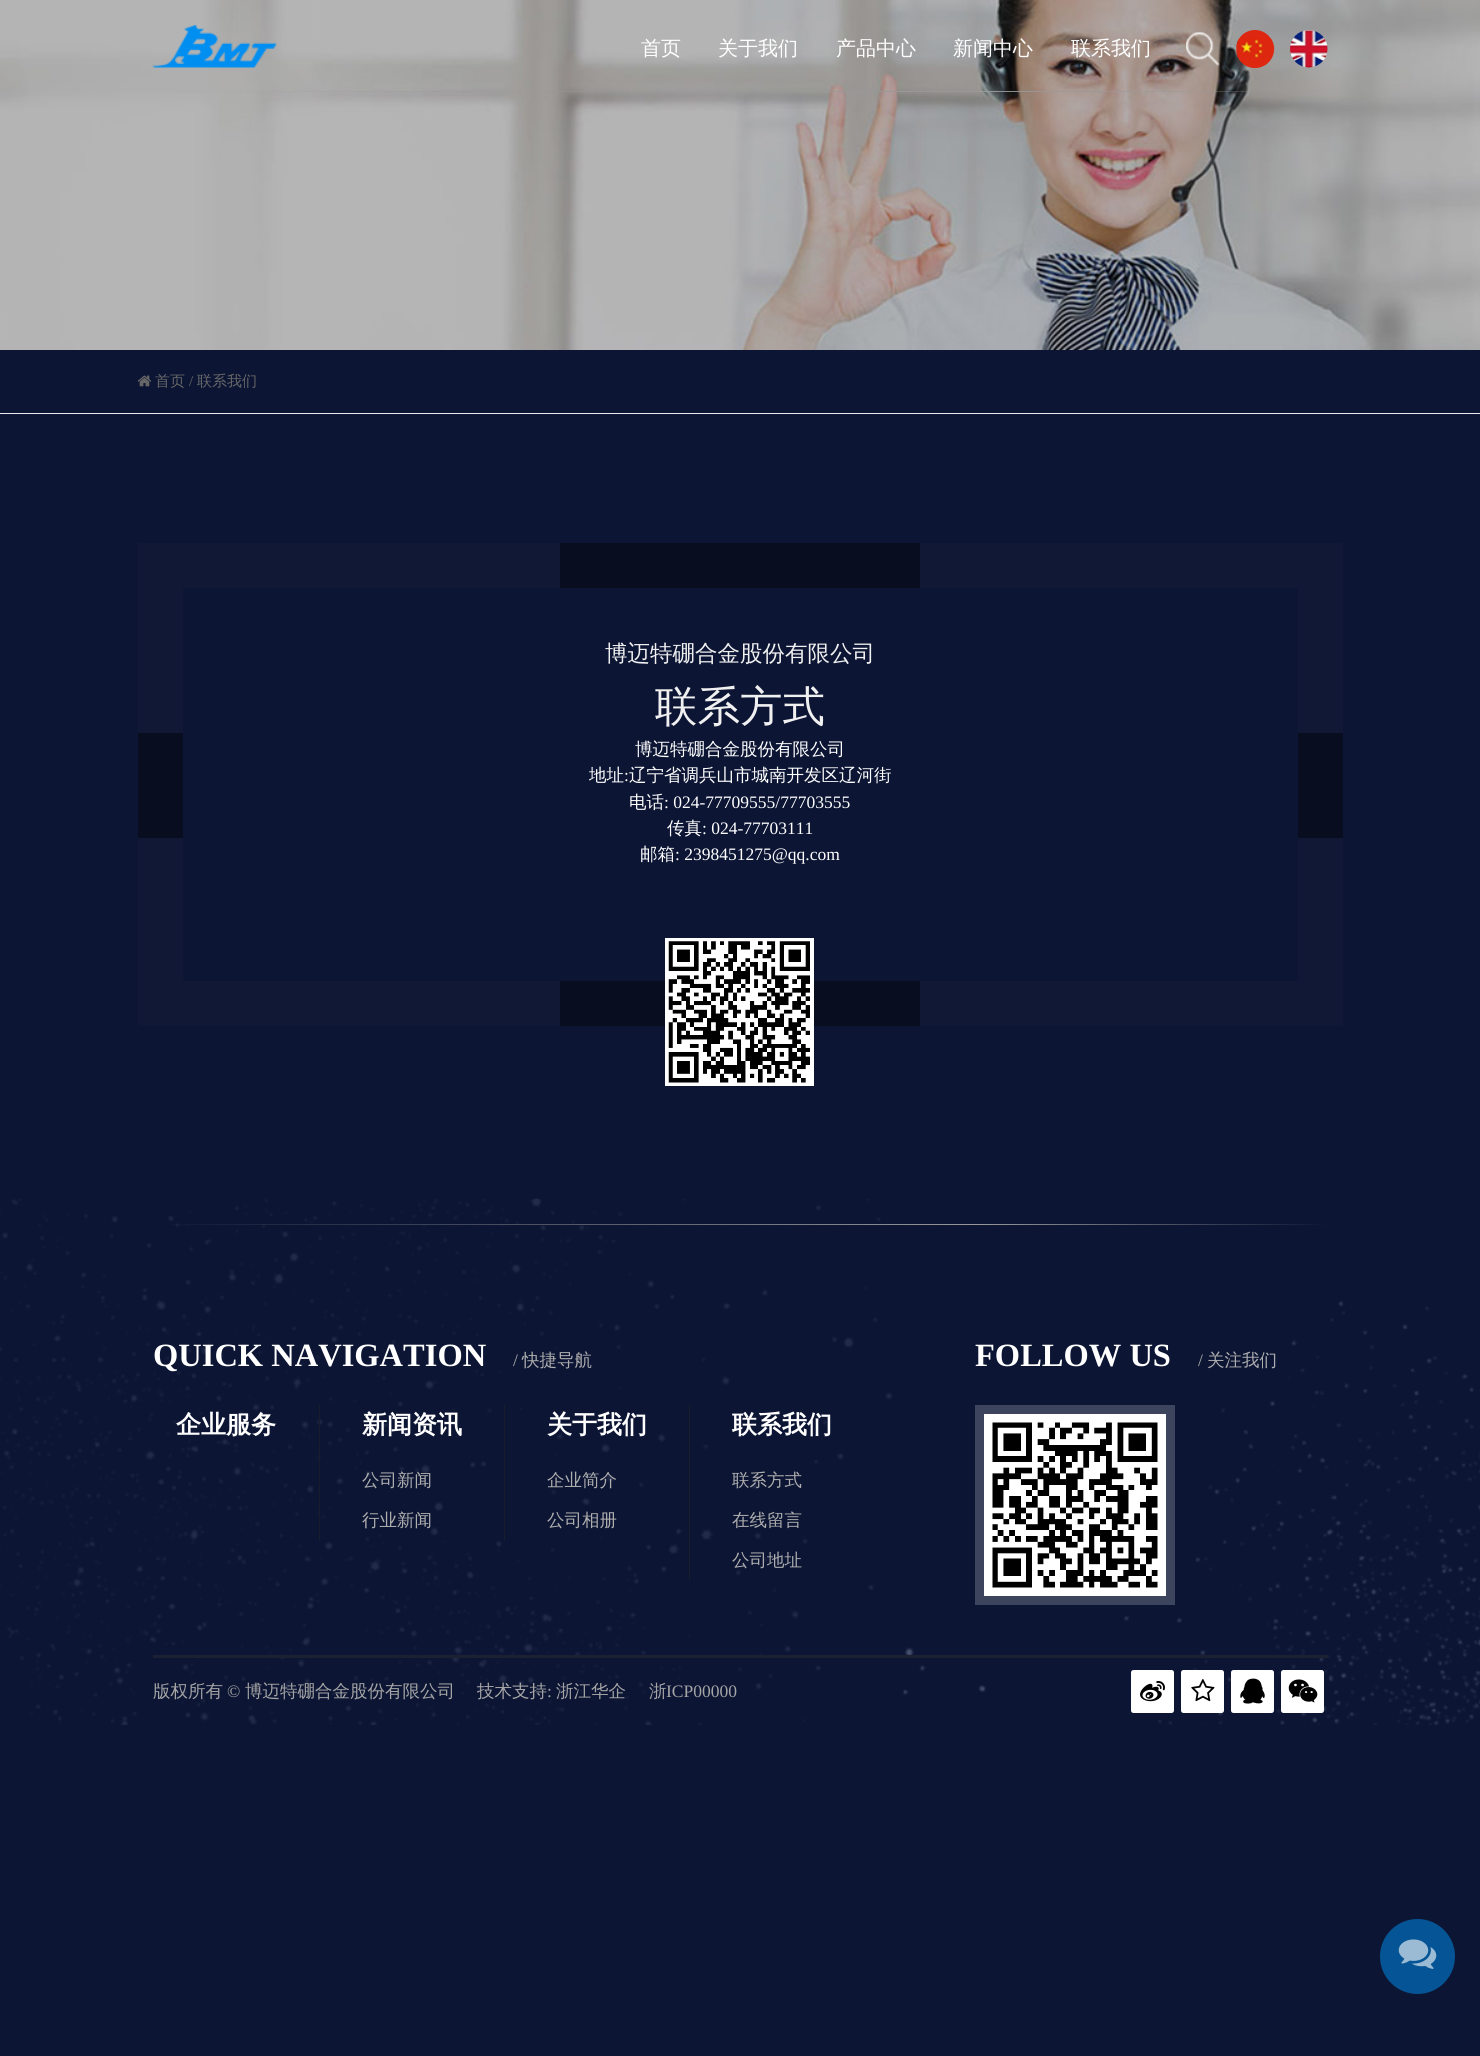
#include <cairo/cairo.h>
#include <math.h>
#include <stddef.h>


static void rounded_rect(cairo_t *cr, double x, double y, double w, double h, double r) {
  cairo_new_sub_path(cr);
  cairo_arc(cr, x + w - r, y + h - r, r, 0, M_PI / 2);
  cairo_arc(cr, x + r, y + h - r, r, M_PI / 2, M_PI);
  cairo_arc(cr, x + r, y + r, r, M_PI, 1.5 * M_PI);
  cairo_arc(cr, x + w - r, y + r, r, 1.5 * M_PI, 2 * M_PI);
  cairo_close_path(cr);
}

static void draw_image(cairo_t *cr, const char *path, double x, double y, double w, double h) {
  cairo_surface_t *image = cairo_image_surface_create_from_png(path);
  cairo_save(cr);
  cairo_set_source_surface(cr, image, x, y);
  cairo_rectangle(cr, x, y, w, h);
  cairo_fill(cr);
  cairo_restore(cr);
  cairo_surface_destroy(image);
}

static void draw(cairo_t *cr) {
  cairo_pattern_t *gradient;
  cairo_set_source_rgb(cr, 12 / 255.0, 21 / 255.0, 52 / 255.0);
  cairo_paint(cr);
  draw_image(cr, "images/1.png", 0, 0, 1480, 350);
  draw_image(cr, "images/2.png", 152, 25, 125, 43);
  draw_image(cr, "images/3.png", 1186, 32, 34, 34);
  cairo_set_source_rgb(cr, 221 / 255.0, 39 / 255.0, 16 / 255.0);
  cairo_arc(cr, 1255, 49, 19, 0, 2 * M_PI);
  cairo_fill(cr);
  draw_image(cr, "images/4.png", 1236, 38, 39, 30);
  draw_image(cr, "images/5.png", 1290, 30, 38, 38);
  cairo_set_source_rgb(cr, 235 / 255.0, 235 / 255.0, 235 / 255.0);
  cairo_rectangle(cr, 0, 413, 1480, 1);
  cairo_fill(cr);
  draw_image(cr, "images/6.png", 137, 375, 15, 12);
  cairo_rectangle(cr, 160.5, 565.5, 1160, 438);
  cairo_set_source_rgb(cr, 16 / 255.0, 24 / 255.0, 54 / 255.0);
  cairo_set_line_width(cr, 45);
  cairo_stroke(cr);
  cairo_set_source_rgb(cr, 8 / 255.0, 13 / 255.0, 32 / 255.0);
  cairo_rectangle(cr, 560, 543, 360, 45);
  cairo_fill(cr);
  cairo_rectangle(cr, 138, 733, 45, 105);
  cairo_fill(cr);
  cairo_rectangle(cr, 1298, 733, 45, 105);
  cairo_fill(cr);
  cairo_rectangle(cr, 560, 981, 360, 45);
  cairo_fill(cr);
  cairo_rectangle(cr, 667, 940, 145, 144);
  cairo_set_source_rgb(cr, 1, 1, 1);
  cairo_set_line_width(cr, 4);
  cairo_stroke(cr);
  draw_image(cr, "images/7.png", 668, 941, 142, 142);
  draw_image(cr, "images/8.png", 0, 1198, 1480, 527);
  gradient = cairo_pattern_create_linear(153, 1224, 1328, 1224);
  cairo_pattern_add_color_stop_rgba(gradient, 0, 153 / 255.0, 153 / 255.0, 153 / 255.0, 0);
  cairo_pattern_add_color_stop_rgba(gradient, 0.7, 153 / 255.0, 153 / 255.0, 153 / 255.0, 1);
  cairo_pattern_add_color_stop_rgba(gradient, 1, 153 / 255.0, 153 / 255.0, 153 / 255.0, 0);
  cairo_set_source(cr, gradient);
  cairo_pattern_destroy(gradient);
  cairo_rectangle(cr, 171, 1224, 1157, 1);
  cairo_fill(cr);
  cairo_set_source_rgb(cr, 23 / 255.0, 29 / 255.0, 45 / 255.0);
  cairo_rectangle(cr, 319, 1405, 1, 136);
  cairo_fill(cr);
  cairo_rectangle(cr, 504, 1405, 1, 136);
  cairo_fill(cr);
  cairo_rectangle(cr, 689, 1405, 1, 176);
  cairo_fill(cr);
  cairo_rectangle(cr, 979.5, 1409.5, 191, 191);
  cairo_set_source_rgb(cr, 61 / 255.0, 68 / 255.0, 93 / 255.0);
  cairo_set_line_width(cr, 9);
  cairo_stroke(cr);
  cairo_rectangle(cr, 988.5, 1418.5, 173, 173);
  cairo_set_source_rgb(cr, 1, 1, 1);
  cairo_stroke(cr);
  draw_image(cr, "images/9.png", 992, 1422, 166, 166);
  cairo_set_source_rgb(cr, 27 / 255.0, 33 / 255.0, 51 / 255.0);
  cairo_rectangle(cr, 153, 1655, 1175, 3);
  cairo_fill(cr);
  cairo_set_source_rgb(cr, 1, 1, 1);
  rounded_rect(cr, 1131, 1670, 43, 43, 2.5);
  cairo_fill(cr);
  draw_image(cr, "images/10.png", 1140, 1681, 25, 21);
  rounded_rect(cr, 1181, 1670, 43, 43, 2.5);
  cairo_fill(cr);
  draw_image(cr, "images/11.png", 1191, 1679, 24, 23);
  rounded_rect(cr, 1231, 1670, 43, 43, 2.5);
  cairo_fill(cr);
  draw_image(cr, "images/12.png", 1240, 1678, 25, 26);
  rounded_rect(cr, 1281, 1670, 43, 43, 2.5);
  cairo_fill(cr);
  draw_image(cr, "images/13.png", 1288, 1679, 30, 24);
  cairo_set_source_rgb(cr, 5 / 255.0, 85 / 255.0, 150 / 255.0);
  cairo_arc(cr, 1417.5, 1956.5, 37.5, 0, 2 * M_PI);
  cairo_fill(cr);
  draw_image(cr, "images/14.png", 1398, 1939, 39, 30);
  cairo_select_font_face(cr, "WenQuanYi Zen Hei Medium", CAIRO_FONT_SLANT_NORMAL, CAIRO_FONT_WEIGHT_NORMAL);
  cairo_set_font_size(cr, 20);
  cairo_set_source_rgb(cr, 1, 1, 1);
  cairo_move_to(cr, 641, 55);
  cairo_show_text(cr, "首页");
  cairo_move_to(cr, 718, 55);
  cairo_show_text(cr, "关于我们");
  cairo_move_to(cr, 836, 55);
  cairo_show_text(cr, "产品中心");
  cairo_move_to(cr, 953, 55);
  cairo_show_text(cr, "新闻中心");
  cairo_move_to(cr, 1071, 55);
  cairo_show_text(cr, "联系我们");
  cairo_set_font_size(cr, 15);
  cairo_set_source_rgb(cr, 102 / 255.0, 102 / 255.0, 102 / 255.0);
  cairo_move_to(cr, 155, 386);
  cairo_show_text(cr, "首页");
  cairo_select_font_face(cr, "Liberation Serif", CAIRO_FONT_SLANT_NORMAL, CAIRO_FONT_WEIGHT_NORMAL);
  cairo_move_to(cr, 189, 386);
  cairo_show_text(cr, "/");
  cairo_select_font_face(cr, "WenQuanYi Zen Hei Medium", CAIRO_FONT_SLANT_NORMAL, CAIRO_FONT_WEIGHT_NORMAL);
  cairo_move_to(cr, 197, 386);
  cairo_show_text(cr, "联系我们");
  cairo_set_font_size(cr, 22.5);
  cairo_set_source_rgb(cr, 240 / 255.0, 240 / 255.0, 240 / 255.0);
  cairo_move_to(cr, 605, 661);
  cairo_show_text(cr, "博迈特硼合金股份有限公司");
  cairo_set_font_size(cr, 42.5);
  cairo_move_to(cr, 655, 721);
  cairo_show_text(cr, "联系方式");
  cairo_set_font_size(cr, 17.5);
  cairo_set_source_rgb(cr, 1, 1, 1);
  cairo_move_to(cr, 635, 755);
  cairo_show_text(cr, "博迈特硼合金股份有限公司");
  cairo_move_to(cr, 589, 781);
  cairo_show_text(cr, "地址");
  cairo_select_font_face(cr, "Liberation Serif", CAIRO_FONT_SLANT_NORMAL, CAIRO_FONT_WEIGHT_NORMAL);
  cairo_move_to(cr, 624, 781);
  cairo_show_text(cr, ":");
  cairo_select_font_face(cr, "WenQuanYi Zen Hei Medium", CAIRO_FONT_SLANT_NORMAL, CAIRO_FONT_WEIGHT_NORMAL);
  cairo_move_to(cr, 629, 781);
  cairo_show_text(cr, "辽宁省调兵山市城南开发区辽河街");
  cairo_move_to(cr, 629, 808);
  cairo_show_text(cr, "电话");
  cairo_select_font_face(cr, "Liberation Serif", CAIRO_FONT_SLANT_NORMAL, CAIRO_FONT_WEIGHT_NORMAL);
  cairo_move_to(cr, 664, 808);
  cairo_show_text(cr, ": 024-77709555/77703555");
  cairo_select_font_face(cr, "WenQuanYi Zen Hei Medium", CAIRO_FONT_SLANT_NORMAL, CAIRO_FONT_WEIGHT_NORMAL);
  cairo_move_to(cr, 667, 834);
  cairo_show_text(cr, "传真");
  cairo_select_font_face(cr, "Liberation Serif", CAIRO_FONT_SLANT_NORMAL, CAIRO_FONT_WEIGHT_NORMAL);
  cairo_move_to(cr, 702, 834);
  cairo_show_text(cr, ": 024-77703111");
  cairo_select_font_face(cr, "WenQuanYi Zen Hei Medium", CAIRO_FONT_SLANT_NORMAL, CAIRO_FONT_WEIGHT_NORMAL);
  cairo_move_to(cr, 640, 860);
  cairo_show_text(cr, "邮箱");
  cairo_select_font_face(cr, "Liberation Serif", CAIRO_FONT_SLANT_NORMAL, CAIRO_FONT_WEIGHT_NORMAL);
  cairo_move_to(cr, 675, 860);
  cairo_show_text(cr, ": 2398451275@qq.com");
  cairo_select_font_face(cr, "Liberation Serif", CAIRO_FONT_SLANT_NORMAL, CAIRO_FONT_WEIGHT_BOLD);
  cairo_set_font_size(cr, 32.5);
  cairo_move_to(cr, 153, 1366);
  cairo_show_text(cr, "QUICK NAVIGATION");
  cairo_select_font_face(cr, "Liberation Serif", CAIRO_FONT_SLANT_NORMAL, CAIRO_FONT_WEIGHT_NORMAL);
  cairo_set_font_size(cr, 17.5);
  cairo_set_source_rgb(cr, 174 / 255.0, 174 / 255.0, 174 / 255.0);
  cairo_move_to(cr, 513, 1366);
  cairo_show_text(cr, "/");
  cairo_select_font_face(cr, "WenQuanYi Zen Hei Medium", CAIRO_FONT_SLANT_NORMAL, CAIRO_FONT_WEIGHT_NORMAL);
  cairo_move_to(cr, 522, 1366);
  cairo_show_text(cr, "快捷导航");
  cairo_select_font_face(cr, "WenQuanYi Zen Hei", CAIRO_FONT_SLANT_NORMAL, CAIRO_FONT_WEIGHT_BOLD);
  cairo_set_font_size(cr, 25);
  cairo_set_source_rgb(cr, 1, 1, 1);
  cairo_move_to(cr, 176, 1433);
  cairo_show_text(cr, "企业服务");
  cairo_move_to(cr, 362, 1433);
  cairo_show_text(cr, "新闻资讯");
  cairo_select_font_face(cr, "WenQuanYi Zen Hei Medium", CAIRO_FONT_SLANT_NORMAL, CAIRO_FONT_WEIGHT_NORMAL);
  cairo_set_font_size(cr, 17.5);
  cairo_set_source_rgb(cr, 174 / 255.0, 174 / 255.0, 174 / 255.0);
  cairo_move_to(cr, 362, 1486);
  cairo_show_text(cr, "公司新闻");
  cairo_move_to(cr, 362, 1526);
  cairo_show_text(cr, "行业新闻");
  cairo_select_font_face(cr, "WenQuanYi Zen Hei", CAIRO_FONT_SLANT_NORMAL, CAIRO_FONT_WEIGHT_BOLD);
  cairo_set_font_size(cr, 25);
  cairo_set_source_rgb(cr, 1, 1, 1);
  cairo_move_to(cr, 547, 1433);
  cairo_show_text(cr, "关于我们");
  cairo_select_font_face(cr, "WenQuanYi Zen Hei Medium", CAIRO_FONT_SLANT_NORMAL, CAIRO_FONT_WEIGHT_NORMAL);
  cairo_set_font_size(cr, 17.5);
  cairo_set_source_rgb(cr, 174 / 255.0, 174 / 255.0, 174 / 255.0);
  cairo_move_to(cr, 547, 1486);
  cairo_show_text(cr, "企业简介");
  cairo_move_to(cr, 547, 1526);
  cairo_show_text(cr, "公司相册");
  cairo_select_font_face(cr, "WenQuanYi Zen Hei", CAIRO_FONT_SLANT_NORMAL, CAIRO_FONT_WEIGHT_BOLD);
  cairo_set_font_size(cr, 25);
  cairo_set_source_rgb(cr, 1, 1, 1);
  cairo_move_to(cr, 732, 1433);
  cairo_show_text(cr, "联系我们");
  cairo_select_font_face(cr, "WenQuanYi Zen Hei Medium", CAIRO_FONT_SLANT_NORMAL, CAIRO_FONT_WEIGHT_NORMAL);
  cairo_set_font_size(cr, 17.5);
  cairo_set_source_rgb(cr, 174 / 255.0, 174 / 255.0, 174 / 255.0);
  cairo_move_to(cr, 732, 1486);
  cairo_show_text(cr, "联系方式");
  cairo_move_to(cr, 732, 1526);
  cairo_show_text(cr, "在线留言");
  cairo_move_to(cr, 732, 1566);
  cairo_show_text(cr, "公司地址");
  cairo_select_font_face(cr, "Liberation Serif", CAIRO_FONT_SLANT_NORMAL, CAIRO_FONT_WEIGHT_BOLD);
  cairo_set_font_size(cr, 32.5);
  cairo_set_source_rgb(cr, 1, 1, 1);
  cairo_move_to(cr, 975, 1366);
  cairo_show_text(cr, "FOLLOW US");
  cairo_select_font_face(cr, "Liberation Serif", CAIRO_FONT_SLANT_NORMAL, CAIRO_FONT_WEIGHT_NORMAL);
  cairo_set_font_size(cr, 17.5);
  cairo_set_source_rgb(cr, 174 / 255.0, 174 / 255.0, 174 / 255.0);
  cairo_move_to(cr, 1198, 1366);
  cairo_show_text(cr, "/");
  cairo_select_font_face(cr, "WenQuanYi Zen Hei Medium", CAIRO_FONT_SLANT_NORMAL, CAIRO_FONT_WEIGHT_NORMAL);
  cairo_move_to(cr, 1207, 1366);
  cairo_show_text(cr, "关注我们");
  cairo_set_source_rgb(cr, 165 / 255.0, 165 / 255.0, 165 / 255.0);
  cairo_move_to(cr, 153, 1697);
  cairo_show_text(cr, "版权所有");
  cairo_select_font_face(cr, "Liberation Serif", CAIRO_FONT_SLANT_NORMAL, CAIRO_FONT_WEIGHT_NORMAL);
  cairo_move_to(cr, 227, 1697);
  cairo_show_text(cr, "©");
  cairo_select_font_face(cr, "WenQuanYi Zen Hei Medium", CAIRO_FONT_SLANT_NORMAL, CAIRO_FONT_WEIGHT_NORMAL);
  cairo_move_to(cr, 245, 1697);
  cairo_show_text(cr, "博迈特硼合金股份有限公司");
  cairo_move_to(cr, 477, 1697);
  cairo_show_text(cr, "技术支持");
  cairo_select_font_face(cr, "Liberation Serif", CAIRO_FONT_SLANT_NORMAL, CAIRO_FONT_WEIGHT_NORMAL);
  cairo_move_to(cr, 547, 1697);
  cairo_show_text(cr, ":");
  cairo_select_font_face(cr, "WenQuanYi Zen Hei Medium", CAIRO_FONT_SLANT_NORMAL, CAIRO_FONT_WEIGHT_NORMAL);
  cairo_move_to(cr, 556, 1697);
  cairo_show_text(cr, "浙江华企");
  cairo_move_to(cr, 649, 1697);
  cairo_show_text(cr, "浙");
  cairo_select_font_face(cr, "Liberation Serif", CAIRO_FONT_SLANT_NORMAL, CAIRO_FONT_WEIGHT_NORMAL);
  cairo_move_to(cr, 666, 1697);
  cairo_show_text(cr, "ICP00000");
}

int main(void) {
  cairo_surface_t *surface = cairo_image_surface_create(CAIRO_FORMAT_RGB24, 1480, 2056);
  cairo_t *cr = cairo_create(surface);
  cairo_font_options_t *options = cairo_font_options_create();
  cairo_font_options_set_hint_metrics(options, CAIRO_HINT_METRICS_OFF);
  cairo_font_options_set_hint_style(options, CAIRO_HINT_STYLE_NONE);
  cairo_set_font_options(cr, options);
  cairo_set_miter_limit(cr, 4);
  draw(cr);
  cairo_surface_write_to_png(surface, "out.png");
  cairo_font_options_destroy(options);
  cairo_destroy(cr);
  cairo_surface_destroy(surface);
  return 0;
}
